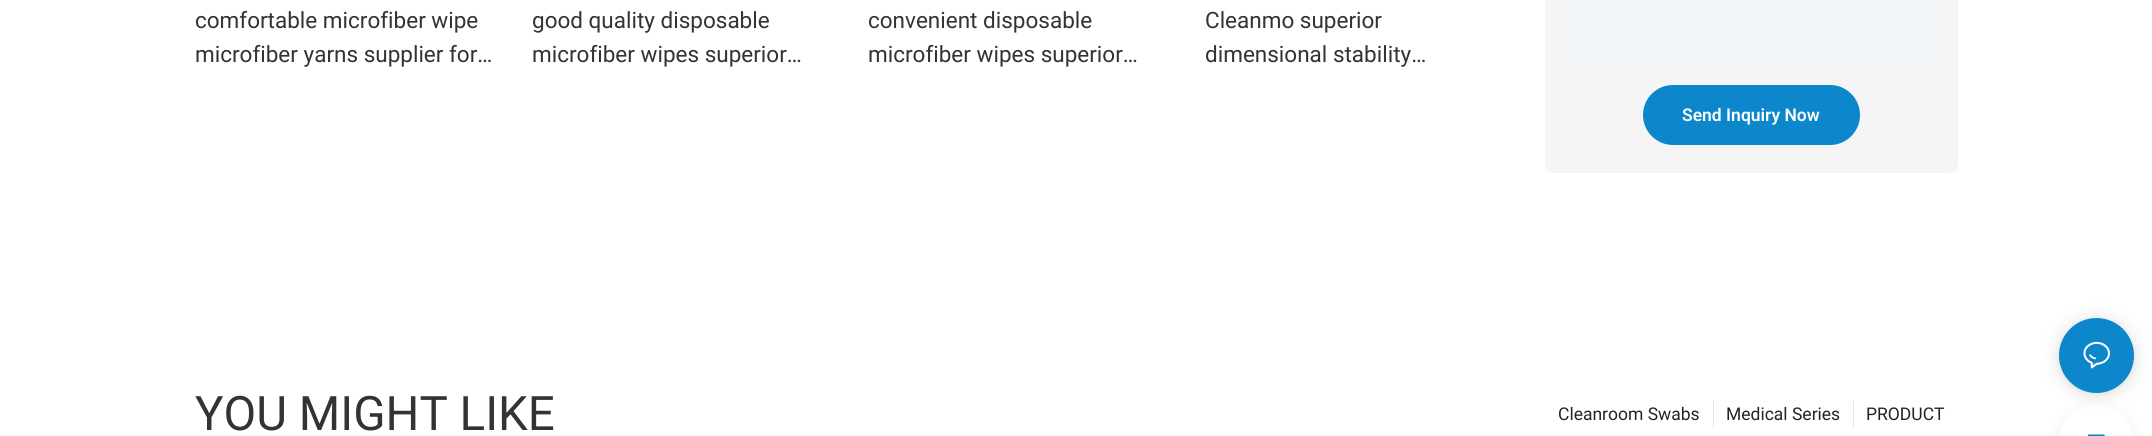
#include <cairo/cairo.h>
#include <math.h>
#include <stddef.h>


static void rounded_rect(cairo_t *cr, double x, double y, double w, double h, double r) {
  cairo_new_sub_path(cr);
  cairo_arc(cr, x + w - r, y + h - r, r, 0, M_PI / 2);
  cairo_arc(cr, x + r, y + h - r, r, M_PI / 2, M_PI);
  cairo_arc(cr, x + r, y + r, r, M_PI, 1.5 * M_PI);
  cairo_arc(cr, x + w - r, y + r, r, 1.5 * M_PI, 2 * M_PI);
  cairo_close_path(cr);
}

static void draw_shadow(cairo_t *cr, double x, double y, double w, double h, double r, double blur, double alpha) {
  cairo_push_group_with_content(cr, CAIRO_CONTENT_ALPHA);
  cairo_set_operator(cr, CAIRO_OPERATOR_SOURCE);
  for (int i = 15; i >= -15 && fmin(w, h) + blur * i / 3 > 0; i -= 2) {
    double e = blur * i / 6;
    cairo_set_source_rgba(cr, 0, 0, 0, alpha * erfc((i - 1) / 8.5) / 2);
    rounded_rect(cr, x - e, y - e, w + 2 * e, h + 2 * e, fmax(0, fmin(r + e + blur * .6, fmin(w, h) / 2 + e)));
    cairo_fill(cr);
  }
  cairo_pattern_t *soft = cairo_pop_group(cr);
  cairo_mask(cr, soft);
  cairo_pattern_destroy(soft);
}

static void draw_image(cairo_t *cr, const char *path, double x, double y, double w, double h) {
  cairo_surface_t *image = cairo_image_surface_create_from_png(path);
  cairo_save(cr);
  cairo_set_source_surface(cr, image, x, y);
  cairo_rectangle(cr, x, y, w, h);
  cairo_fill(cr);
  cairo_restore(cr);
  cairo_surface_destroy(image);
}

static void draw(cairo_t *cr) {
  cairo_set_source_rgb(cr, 1, 1, 1);
  cairo_paint(cr);
  cairo_set_source_rgb(cr, 245 / 255.0, 245 / 255.0, 245 / 255.0);
  cairo_new_path(cr);
  cairo_move_to(cr, 1545, -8);
  cairo_line_to(cr, 1958, -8);
  cairo_line_to(cr, 1958, 165);
  cairo_curve_to(cr, 1958, 169.5, 1954.5, 173, 1950, 173);
  cairo_line_to(cr, 1553, 173);
  cairo_curve_to(cr, 1548.5, 173, 1545, 169.5, 1545, 165);
  cairo_close_path(cr);
  cairo_fill(cr);
  cairo_set_source_rgb(cr, 241 / 255.0, 245 / 255.0, 249 / 255.0);
  rounded_rect(cr, 1566, -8, 370, 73, 8);
  cairo_fill(cr);
  cairo_set_source_rgb(cr, 12 / 255.0, 135 / 255.0, 203 / 255.0);
  rounded_rect(cr, 1643, 85, 217, 60, 30);
  cairo_fill(cr);
  cairo_set_source_rgb(cr, 230 / 255.0, 230 / 255.0, 230 / 255.0);
  cairo_rectangle(cr, 1713, 401, 1, 27);
  cairo_fill(cr);
  cairo_rectangle(cr, 1853, 401, 1, 27);
  cairo_fill(cr);
  cairo_set_source_rgb(cr, 40 / 255.0, 47 / 255.0, 54 / 255.0);
  draw_shadow(cr, 2059, 410, 75, 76, 37.5, 9.5, 0.08);
  cairo_set_source_rgb(cr, 1, 1, 1);
  rounded_rect(cr, 2059, 404, 75, 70, 37.5);
  cairo_fill(cr);
  cairo_set_source_rgb(cr, 0, 0, 0);
  draw_shadow(cr, 2059, 320, 75, 75, 37.5, 10, 0.12);
  draw_shadow(cr, 2059, 319, 75, 75, 37.5, 2.5, 0.06);
  cairo_set_source_rgb(cr, 12 / 255.0, 135 / 255.0, 203 / 255.0);
  cairo_arc(cr, 2096.5, 355.5, 37.5, 0, 2 * M_PI);
  cairo_fill(cr);
  draw_image(cr, "images/1.png", 2083, 341, 27, 28);
  draw_image(cr, "images/2.png", 2087, 434, 18, 2);
  cairo_select_font_face(cr, "Roboto", CAIRO_FONT_SLANT_NORMAL, CAIRO_FONT_WEIGHT_NORMAL);
  cairo_set_font_size(cr, 22.5);
  cairo_set_source_rgb(cr, 51 / 255.0, 51 / 255.0, 51 / 255.0);
  cairo_move_to(cr, 195, 28);
  cairo_show_text(cr, "comfortable microfiber wipe");
  cairo_move_to(cr, 195, 62);
  cairo_show_text(cr, "microfiber yarns supplier for…");
  cairo_move_to(cr, 532, 28);
  cairo_show_text(cr, "good quality disposable");
  cairo_move_to(cr, 532, 62);
  cairo_show_text(cr, "microfiber wipes superior…");
  cairo_move_to(cr, 868, 28);
  cairo_show_text(cr, "convenient disposable");
  cairo_move_to(cr, 868, 62);
  cairo_show_text(cr, "microfiber wipes superior…");
  cairo_move_to(cr, 1205, 28);
  cairo_show_text(cr, "Cleanmo superior");
  cairo_move_to(cr, 1205, 62);
  cairo_show_text(cr, "dimensional stability…");
  cairo_select_font_face(cr, "Roboto SemiBold", CAIRO_FONT_SLANT_NORMAL, CAIRO_FONT_WEIGHT_NORMAL);
  cairo_set_font_size(cr, 17.5);
  cairo_set_source_rgb(cr, 1, 1, 1);
  cairo_move_to(cr, 1682, 121);
  cairo_show_text(cr, "Send Inquiry Now");
  cairo_select_font_face(cr, "Roboto", CAIRO_FONT_SLANT_NORMAL, CAIRO_FONT_WEIGHT_NORMAL);
  cairo_set_font_size(cr, 47.5);
  cairo_set_source_rgb(cr, 51 / 255.0, 51 / 255.0, 51 / 255.0);
  cairo_move_to(cr, 195, 430);
  cairo_show_text(cr, "YOU MIGHT LIKE");
  cairo_set_font_size(cr, 17.5);
  cairo_set_source_rgb(cr, 33 / 255.0, 37 / 255.0, 41 / 255.0);
  cairo_move_to(cr, 1558, 420);
  cairo_show_text(cr, "Cleanroom Swabs");
  cairo_move_to(cr, 1726, 420);
  cairo_show_text(cr, "Medical Series");
  cairo_move_to(cr, 1866, 420);
  cairo_show_text(cr, "PRODUCT");
}

int main(void) {
  cairo_surface_t *surface = cairo_image_surface_create(CAIRO_FORMAT_RGB24, 2152, 436);
  cairo_t *cr = cairo_create(surface);
  cairo_font_options_t *options = cairo_font_options_create();
  cairo_font_options_set_hint_metrics(options, CAIRO_HINT_METRICS_OFF);
  cairo_font_options_set_hint_style(options, CAIRO_HINT_STYLE_NONE);
  cairo_set_font_options(cr, options);
  cairo_set_miter_limit(cr, 4);
  draw(cr);
  cairo_surface_write_to_png(surface, "out.png");
  cairo_font_options_destroy(options);
  cairo_destroy(cr);
  cairo_surface_destroy(surface);
  return 0;
}
